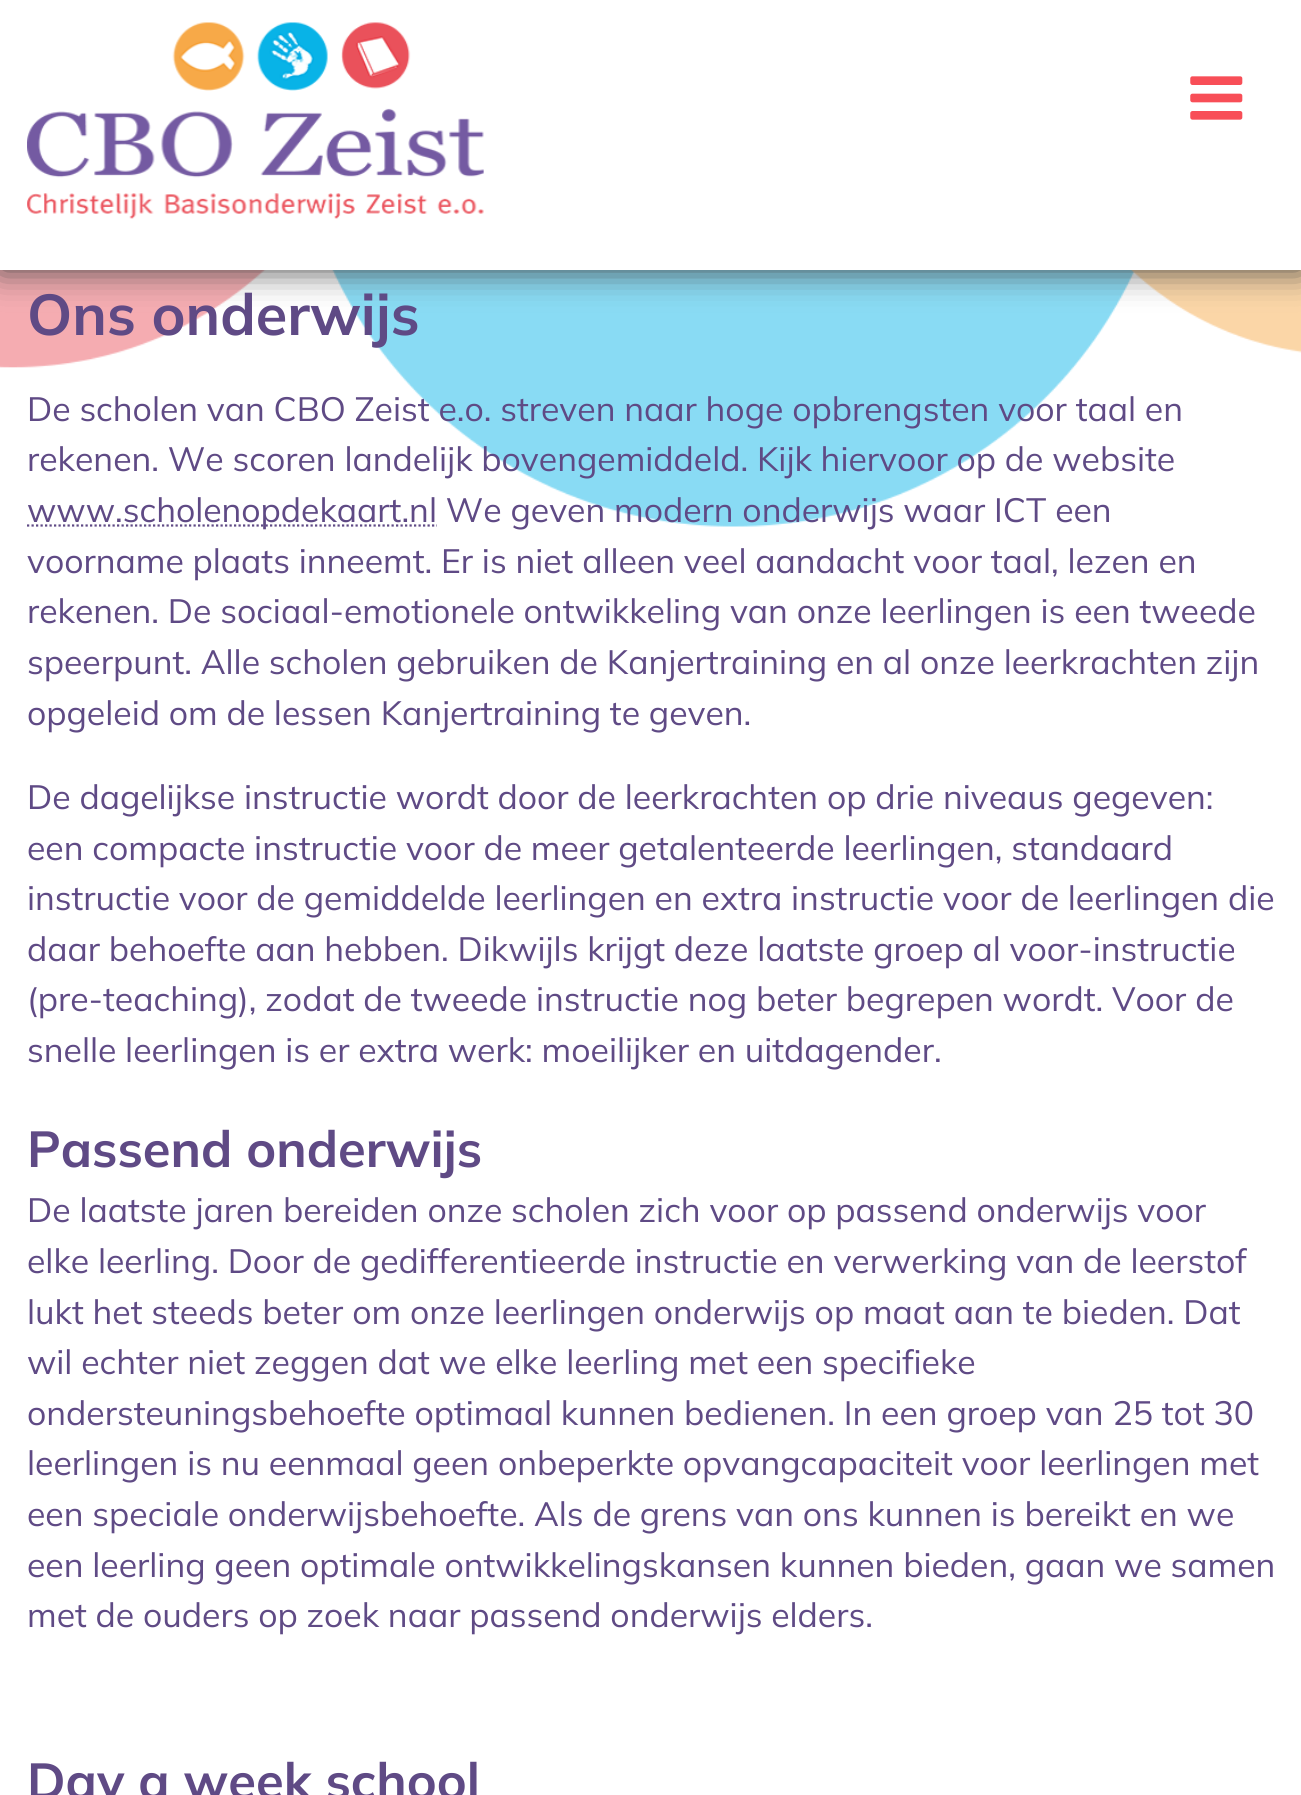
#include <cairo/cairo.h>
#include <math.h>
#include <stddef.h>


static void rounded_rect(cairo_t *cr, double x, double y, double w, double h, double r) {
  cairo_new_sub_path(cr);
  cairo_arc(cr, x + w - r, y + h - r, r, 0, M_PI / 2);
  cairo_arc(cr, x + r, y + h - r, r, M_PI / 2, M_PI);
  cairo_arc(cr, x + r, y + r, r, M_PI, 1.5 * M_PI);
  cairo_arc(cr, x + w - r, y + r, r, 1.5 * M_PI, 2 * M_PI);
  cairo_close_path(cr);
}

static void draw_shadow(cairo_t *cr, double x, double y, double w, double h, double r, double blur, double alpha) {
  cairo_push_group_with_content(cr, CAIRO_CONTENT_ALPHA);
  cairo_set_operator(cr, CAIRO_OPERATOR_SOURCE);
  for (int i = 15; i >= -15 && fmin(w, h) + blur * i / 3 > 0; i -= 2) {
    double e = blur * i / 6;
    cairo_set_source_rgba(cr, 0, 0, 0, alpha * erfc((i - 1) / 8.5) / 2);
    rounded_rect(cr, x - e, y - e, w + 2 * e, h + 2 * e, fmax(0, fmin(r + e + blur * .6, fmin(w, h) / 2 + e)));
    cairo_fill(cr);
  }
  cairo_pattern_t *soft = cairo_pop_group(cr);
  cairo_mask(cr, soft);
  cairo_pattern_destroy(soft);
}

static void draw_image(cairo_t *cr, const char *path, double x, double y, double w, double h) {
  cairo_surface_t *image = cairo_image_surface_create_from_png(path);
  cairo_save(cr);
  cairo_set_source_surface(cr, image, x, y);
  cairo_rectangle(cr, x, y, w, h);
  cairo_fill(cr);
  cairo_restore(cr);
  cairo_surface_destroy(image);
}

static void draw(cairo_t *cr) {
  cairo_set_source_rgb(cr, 1, 1, 1);
  cairo_paint(cr);
  draw_image(cr, "images/1.png", 0, 270, 1301, 257);
  cairo_set_source_rgb(cr, 68 / 255.0, 68 / 255.0, 68 / 255.0);
  draw_shadow(cr, 0, 0, 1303, 270, 0, 17, 1);
  cairo_set_source_rgb(cr, 1, 1, 1);
  cairo_rectangle(cr, 0, 0, 1301, 270);
  cairo_fill(cr);
  draw_image(cr, "images/2.png", 27, 22, 457, 197);
  draw_image(cr, "images/3.png", 1190, 76, 53, 44);
  cairo_new_path(cr);
  cairo_move_to(cr, 27, 525.5);
  cairo_line_to(cr, 437, 525.5);
  cairo_set_source_rgb(cr, 95 / 255.0, 74 / 255.0, 133 / 255.0);
  cairo_set_line_width(cr, 2.2);
  cairo_set_dash(cr, (double[]){2.25, 2.25}, 2, 0);
  cairo_stroke(cr);
  cairo_select_font_face(cr, "Mulish", CAIRO_FONT_SLANT_NORMAL, CAIRO_FONT_WEIGHT_BOLD);
  cairo_set_font_size(cr, 57.5);
  cairo_move_to(cr, 27, 335);
  cairo_show_text(cr, "Ons onderwijs");
  cairo_select_font_face(cr, "Mulish", CAIRO_FONT_SLANT_NORMAL, CAIRO_FONT_WEIGHT_NORMAL);
  cairo_set_font_size(cr, 33.75);
  cairo_move_to(cr, 27, 421);
  cairo_show_text(cr, "De scholen van CBO Zeist e.o. streven naar hoge opbrengsten voor taal en");
  cairo_move_to(cr, 27, 471);
  cairo_show_text(cr, "rekenen. We scoren landelijk bovengemiddeld. Kijk hiervoor op de website");
  cairo_move_to(cr, 27, 522);
  cairo_show_text(cr, "www.scholenopdekaart.nl We geven modern onderwijs waar ICT een");
  cairo_move_to(cr, 27, 573);
  cairo_show_text(cr, "voorname plaats inneemt. Er is niet alleen veel aandacht voor taal, lezen en");
  cairo_move_to(cr, 27, 623);
  cairo_show_text(cr, "rekenen. De sociaal-emotionele ontwikkeling van onze leerlingen is een tweede");
  cairo_move_to(cr, 27, 674);
  cairo_show_text(cr, "speerpunt. Alle scholen gebruiken de Kanjertraining en al onze leerkrachten zijn");
  cairo_move_to(cr, 27, 725);
  cairo_show_text(cr, "opgeleid om de lessen Kanjertraining te geven.");
  cairo_move_to(cr, 27, 809);
  cairo_show_text(cr, "De dagelijkse instructie wordt door de leerkrachten op drie niveaus gegeven:");
  cairo_move_to(cr, 27, 860);
  cairo_show_text(cr, "een compacte instructie voor de meer getalenteerde leerlingen, standaard");
  cairo_move_to(cr, 27, 910);
  cairo_show_text(cr, "instructie voor de gemiddelde leerlingen en extra instructie voor de leerlingen die");
  cairo_move_to(cr, 27, 961);
  cairo_show_text(cr, "daar behoefte aan hebben. Dikwijls krijgt deze laatste groep al voor-instructie");
  cairo_move_to(cr, 27, 1011);
  cairo_show_text(cr, "(pre-teaching), zodat de tweede instructie nog beter begrepen wordt. Voor de");
  cairo_move_to(cr, 27, 1062);
  cairo_show_text(cr, "snelle leerlingen is er extra werk: moeilijker en uitdagender.");
  cairo_select_font_face(cr, "Mulish", CAIRO_FONT_SLANT_NORMAL, CAIRO_FONT_WEIGHT_BOLD);
  cairo_set_font_size(cr, 50.6);
  cairo_move_to(cr, 27, 1167);
  cairo_show_text(cr, "Passend onderwijs");
  cairo_select_font_face(cr, "Mulish", CAIRO_FONT_SLANT_NORMAL, CAIRO_FONT_WEIGHT_NORMAL);
  cairo_set_font_size(cr, 33.75);
  cairo_move_to(cr, 27, 1222);
  cairo_show_text(cr, "De laatste jaren bereiden onze scholen zich voor op passend onderwijs voor");
  cairo_move_to(cr, 27, 1273);
  cairo_show_text(cr, "elke leerling. Door de gedifferentieerde instructie en verwerking van de leerstof");
  cairo_move_to(cr, 27, 1324);
  cairo_show_text(cr, "lukt het steeds beter om onze leerlingen onderwijs op maat aan te bieden. Dat");
  cairo_move_to(cr, 27, 1374);
  cairo_show_text(cr, "wil echter niet zeggen dat we elke leerling met een specifieke");
  cairo_move_to(cr, 27, 1425);
  cairo_show_text(cr, "ondersteuningsbehoefte optimaal kunnen bedienen. In een groep van 25 tot 30");
  cairo_move_to(cr, 27, 1475);
  cairo_show_text(cr, "leerlingen is nu eenmaal geen onbeperkte opvangcapaciteit voor leerlingen met");
  cairo_move_to(cr, 27, 1526);
  cairo_show_text(cr, "een speciale onderwijsbehoefte. Als de grens van ons kunnen is bereikt en we");
  cairo_move_to(cr, 27, 1577);
  cairo_show_text(cr, "een leerling geen optimale ontwikkelingskansen kunnen bieden, gaan we samen");
  cairo_move_to(cr, 27, 1627);
  cairo_show_text(cr, "met de ouders op zoek naar passend onderwijs elders.");
  cairo_select_font_face(cr, "Mulish", CAIRO_FONT_SLANT_NORMAL, CAIRO_FONT_WEIGHT_BOLD);
  cairo_set_font_size(cr, 50.6);
  cairo_move_to(cr, 27, 1799);
  cairo_show_text(cr, "Day a week school");
}

int main(void) {
  cairo_surface_t *surface = cairo_image_surface_create(CAIRO_FORMAT_RGB24, 1301, 1795);
  cairo_t *cr = cairo_create(surface);
  cairo_font_options_t *options = cairo_font_options_create();
  cairo_font_options_set_hint_metrics(options, CAIRO_HINT_METRICS_OFF);
  cairo_font_options_set_hint_style(options, CAIRO_HINT_STYLE_NONE);
  cairo_set_font_options(cr, options);
  cairo_set_miter_limit(cr, 4);
  draw(cr);
  cairo_surface_write_to_png(surface, "out.png");
  cairo_font_options_destroy(options);
  cairo_destroy(cr);
  cairo_surface_destroy(surface);
  return 0;
}
